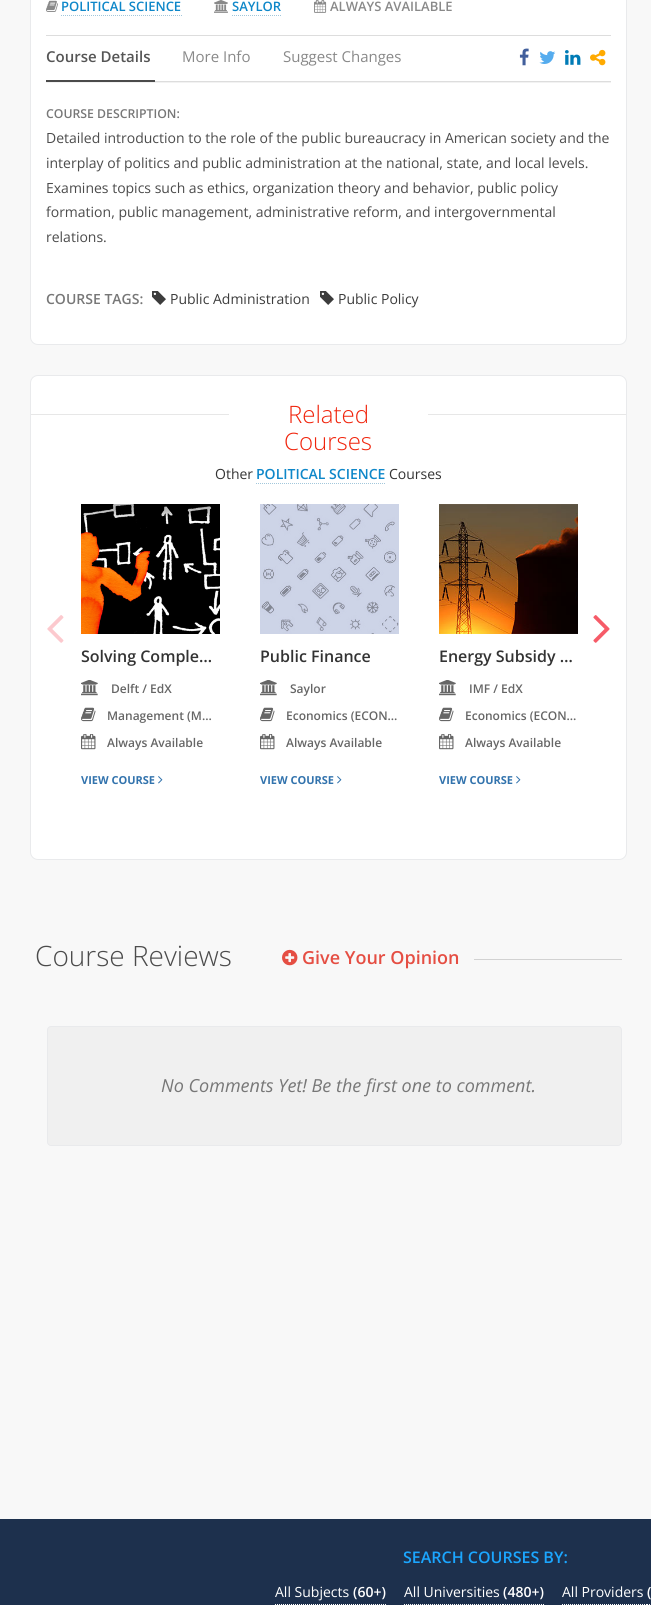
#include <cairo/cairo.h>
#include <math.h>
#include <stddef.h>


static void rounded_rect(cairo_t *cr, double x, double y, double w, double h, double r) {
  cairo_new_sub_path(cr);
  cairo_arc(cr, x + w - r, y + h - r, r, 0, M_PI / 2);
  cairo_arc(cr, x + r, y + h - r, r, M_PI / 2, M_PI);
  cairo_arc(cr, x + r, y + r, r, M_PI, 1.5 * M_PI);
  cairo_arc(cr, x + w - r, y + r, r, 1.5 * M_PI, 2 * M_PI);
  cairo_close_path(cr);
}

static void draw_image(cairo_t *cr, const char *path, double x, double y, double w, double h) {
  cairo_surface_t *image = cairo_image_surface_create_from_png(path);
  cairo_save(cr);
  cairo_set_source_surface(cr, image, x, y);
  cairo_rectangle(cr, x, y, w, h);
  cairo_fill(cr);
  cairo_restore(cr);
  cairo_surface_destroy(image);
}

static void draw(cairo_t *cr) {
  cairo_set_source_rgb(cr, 248 / 255.0, 248 / 255.0, 248 / 255.0);
  cairo_paint(cr);
  cairo_set_source_rgb(cr, 1, 1, 1);
  rounded_rect(cr, 30.5, -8.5, 596, 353, 7.5);
  cairo_fill_preserve(cr);
  cairo_set_source_rgb(cr, 233 / 255.0, 234 / 255.0, 236 / 255.0);
  cairo_set_line_width(cr, 1);
  cairo_stroke(cr);
  draw_image(cr, "images/1.png", 46, 0, 12, 12);
  cairo_new_path(cr);
  cairo_move_to(cr, 61, 15.5);
  cairo_line_to(cr, 182, 15.5);
  cairo_set_source_rgb(cr, 162 / 255.0, 199 / 255.0, 219 / 255.0);
  cairo_set_dash(cr, (double[]){1, 1}, 2, 0);
  cairo_stroke(cr);
  draw_image(cr, "images/2.png", 214, 0, 14, 13);
  cairo_new_path(cr);
  cairo_move_to(cr, 232, 15.5);
  cairo_line_to(cr, 282, 15.5);
  cairo_stroke(cr);
  draw_image(cr, "images/3.png", 314, 0, 13, 13);
  cairo_set_source_rgb(cr, 242 / 255.0, 242 / 255.0, 242 / 255.0);
  cairo_rectangle(cr, 46, 82, 565, 1);
  cairo_fill(cr);
  cairo_set_source_rgb(cr, 221 / 255.0, 221 / 255.0, 221 / 255.0);
  cairo_rectangle(cr, 46, 35, 565, 1);
  cairo_fill(cr);
  cairo_rectangle(cr, 155, 81, 456, 1);
  cairo_fill(cr);
  cairo_set_source_rgb(cr, 75 / 255.0, 75 / 255.0, 75 / 255.0);
  cairo_rectangle(cr, 46, 80, 109, 2);
  cairo_fill(cr);
  draw_image(cr, "images/4.png", 519, 48, 10, 18);
  draw_image(cr, "images/5.png", 539, 51, 17, 13);
  draw_image(cr, "images/6.png", 565, 50, 16, 15);
  draw_image(cr, "images/7.png", 590, 49, 16, 17);
  draw_image(cr, "images/8.png", 152, 291, 14, 14);
  draw_image(cr, "images/8.png", 320, 291, 14, 14);
  cairo_set_source_rgb(cr, 1, 1, 1);
  rounded_rect(cr, 30.5, 375.5, 596, 484, 7.5);
  cairo_fill_preserve(cr);
  cairo_set_source_rgb(cr, 233 / 255.0, 234 / 255.0, 236 / 255.0);
  cairo_set_dash(cr, NULL, 0, 0);
  cairo_stroke(cr);
  cairo_set_source_rgb(cr, 231 / 255.0, 231 / 255.0, 231 / 255.0);
  cairo_rectangle(cr, 31, 414, 198, 1);
  cairo_fill(cr);
  cairo_rectangle(cr, 428, 414, 198, 1);
  cairo_fill(cr);
  cairo_new_path(cr);
  cairo_move_to(cr, 256, 483.5);
  cairo_line_to(cr, 386, 483.5);
  cairo_set_source_rgb(cr, 162 / 255.0, 199 / 255.0, 219 / 255.0);
  cairo_set_dash(cr, (double[]){1, 1}, 2, 0);
  cairo_stroke(cr);
  draw_image(cr, "images/9.png", 47, 615, 17, 28);
  draw_image(cr, "images/10.png", 593, 615, 17, 28);
  draw_image(cr, "images/11.png", 81, 504, 139, 130);
  draw_image(cr, "images/12.png", 81, 680, 17, 16);
  draw_image(cr, "images/13.png", 81, 707, 15, 15);
  draw_image(cr, "images/14.png", 81, 734, 15, 16);
  draw_image(cr, "images/15.png", 158, 776, 5, 8);
  draw_image(cr, "images/16.png", 260, 504, 139, 130);
  draw_image(cr, "images/12.png", 260, 680, 17, 16);
  draw_image(cr, "images/13.png", 260, 707, 15, 15);
  draw_image(cr, "images/14.png", 260, 734, 15, 16);
  draw_image(cr, "images/15.png", 337, 776, 5, 8);
  draw_image(cr, "images/17.png", 439, 504, 139, 130);
  draw_image(cr, "images/12.png", 439, 680, 17, 16);
  draw_image(cr, "images/13.png", 439, 707, 15, 15);
  draw_image(cr, "images/14.png", 439, 734, 15, 16);
  draw_image(cr, "images/15.png", 516, 776, 5, 8);
  draw_image(cr, "images/18.png", 282, 949, 16, 17);
  cairo_set_source_rgb(cr, 210 / 255.0, 210 / 255.0, 210 / 255.0);
  cairo_rectangle(cr, 474, 959, 148, 1);
  cairo_fill(cr);
  cairo_set_source_rgb(cr, 240 / 255.0, 240 / 255.0, 240 / 255.0);
  rounded_rect(cr, 47.5, 1026.5, 574, 119, 3.5);
  cairo_fill_preserve(cr);
  cairo_set_source_rgb(cr, 233 / 255.0, 234 / 255.0, 236 / 255.0);
  cairo_set_dash(cr, NULL, 0, 0);
  cairo_stroke(cr);
  cairo_set_source_rgb(cr, 29 / 255.0, 48 / 255.0, 77 / 255.0);
  cairo_rectangle(cr, 0, 1519, 651, 86);
  cairo_fill(cr);
  cairo_new_path(cr);
  cairo_move_to(cr, 275, 1604.5);
  cairo_line_to(cr, 353, 1604.5);
  cairo_set_source_rgb(cr, 254 / 255.0, 254 / 255.0, 254 / 255.0);
  cairo_set_dash(cr, (double[]){1, 1}, 2, 0);
  cairo_stroke(cr);
  cairo_new_path(cr);
  cairo_move_to(cr, 353, 1604.5);
  cairo_line_to(cr, 386, 1604.5);
  cairo_stroke(cr);
  cairo_new_path(cr);
  cairo_move_to(cr, 404, 1604.5);
  cairo_line_to(cr, 503, 1604.5);
  cairo_stroke(cr);
  cairo_new_path(cr);
  cairo_move_to(cr, 503, 1604.5);
  cairo_line_to(cr, 544, 1604.5);
  cairo_stroke(cr);
  cairo_new_path(cr);
  cairo_move_to(cr, 562, 1604.5);
  cairo_line_to(cr, 647, 1604.5);
  cairo_stroke(cr);
  cairo_new_path(cr);
  cairo_move_to(cr, 647, 1604.5);
  cairo_line_to(cr, 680, 1604.5);
  cairo_stroke(cr);
  cairo_select_font_face(cr, "Open Sans SemiBold", CAIRO_FONT_SLANT_NORMAL, CAIRO_FONT_WEIGHT_NORMAL);
  cairo_set_font_size(cr, 13);
  cairo_set_source_rgb(cr, 14 / 255.0, 135 / 255.0, 201 / 255.0);
  cairo_move_to(cr, 61, 11);
  cairo_show_text(cr, "POLITICAL SCIENCE");
  cairo_move_to(cr, 232, 11);
  cairo_show_text(cr, "SAYLOR");
  cairo_set_source_rgb(cr, 137 / 255.0, 137 / 255.0, 137 / 255.0);
  cairo_move_to(cr, 330, 11);
  cairo_show_text(cr, "ALWAYS AVAILABLE");
  cairo_set_font_size(cr, 15);
  cairo_set_source_rgb(cr, 85 / 255.0, 85 / 255.0, 85 / 255.0);
  cairo_move_to(cr, 46, 62);
  cairo_show_text(cr, "Course Details");
  cairo_select_font_face(cr, "Open Sans", CAIRO_FONT_SLANT_NORMAL, CAIRO_FONT_WEIGHT_NORMAL);
  cairo_set_source_rgb(cr, 137 / 255.0, 137 / 255.0, 137 / 255.0);
  cairo_move_to(cr, 182, 62);
  cairo_show_text(cr, "More Info");
  cairo_move_to(cr, 283, 62);
  cairo_show_text(cr, "Suggest Changes");
  cairo_select_font_face(cr, "Open Sans SemiBold", CAIRO_FONT_SLANT_NORMAL, CAIRO_FONT_WEIGHT_NORMAL);
  cairo_set_font_size(cr, 12.25);
  cairo_set_source_rgb(cr, 119 / 255.0, 119 / 255.0, 119 / 255.0);
  cairo_move_to(cr, 46, 118);
  cairo_show_text(cr, "COURSE DESCRIPTION:");
  cairo_select_font_face(cr, "Open Sans", CAIRO_FONT_SLANT_NORMAL, CAIRO_FONT_WEIGHT_NORMAL);
  cairo_set_font_size(cr, 14);
  cairo_set_source_rgb(cr, 75 / 255.0, 75 / 255.0, 75 / 255.0);
  cairo_move_to(cr, 46, 143);
  cairo_show_text(cr, "Detailed introduction to the role of the public bureaucracy in American society and the");
  cairo_move_to(cr, 46, 168);
  cairo_show_text(cr, "interplay of politics and public administration at the national, state, and local levels.");
  cairo_move_to(cr, 46, 193);
  cairo_show_text(cr, "Examines topics such as ethics, organization theory and behavior, public policy");
  cairo_move_to(cr, 46, 217);
  cairo_show_text(cr, "formation, public management, administrative reform, and intergovernmental");
  cairo_move_to(cr, 46, 242);
  cairo_show_text(cr, "relations.");
  cairo_select_font_face(cr, "Open Sans SemiBold", CAIRO_FONT_SLANT_NORMAL, CAIRO_FONT_WEIGHT_NORMAL);
  cairo_set_source_rgb(cr, 119 / 255.0, 119 / 255.0, 119 / 255.0);
  cairo_move_to(cr, 46, 304);
  cairo_show_text(cr, "COURSE TAGS:");
  cairo_select_font_face(cr, "Open Sans", CAIRO_FONT_SLANT_NORMAL, CAIRO_FONT_WEIGHT_NORMAL);
  cairo_set_source_rgb(cr, 60 / 255.0, 60 / 255.0, 60 / 255.0);
  cairo_move_to(cr, 170, 304);
  cairo_show_text(cr, "Public Administration");
  cairo_move_to(cr, 338, 304);
  cairo_show_text(cr, "Public Policy");
  cairo_select_font_face(cr, "Open Sans Light", CAIRO_FONT_SLANT_NORMAL, CAIRO_FONT_WEIGHT_NORMAL);
  cairo_set_font_size(cr, 24);
  cairo_set_source_rgb(cr, 240 / 255.0, 36 / 255.0, 12 / 255.0);
  cairo_move_to(cr, 288, 423);
  cairo_show_text(cr, "Related");
  cairo_move_to(cr, 284, 450);
  cairo_show_text(cr, "Courses");
  cairo_select_font_face(cr, "Open Sans", CAIRO_FONT_SLANT_NORMAL, CAIRO_FONT_WEIGHT_NORMAL);
  cairo_set_font_size(cr, 14);
  cairo_set_source_rgb(cr, 51 / 255.0, 51 / 255.0, 51 / 255.0);
  cairo_move_to(cr, 215, 479);
  cairo_show_text(cr, "Other");
  cairo_select_font_face(cr, "Open Sans SemiBold", CAIRO_FONT_SLANT_NORMAL, CAIRO_FONT_WEIGHT_NORMAL);
  cairo_set_source_rgb(cr, 14 / 255.0, 135 / 255.0, 201 / 255.0);
  cairo_move_to(cr, 256, 479);
  cairo_show_text(cr, "POLITICAL SCIENCE");
  cairo_select_font_face(cr, "Open Sans", CAIRO_FONT_SLANT_NORMAL, CAIRO_FONT_WEIGHT_NORMAL);
  cairo_set_source_rgb(cr, 51 / 255.0, 51 / 255.0, 51 / 255.0);
  cairo_move_to(cr, 389, 479);
  cairo_show_text(cr, "Courses");
  cairo_select_font_face(cr, "Open Sans SemiBold", CAIRO_FONT_SLANT_NORMAL, CAIRO_FONT_WEIGHT_NORMAL);
  cairo_set_font_size(cr, 16);
  cairo_move_to(cr, 81, 662);
  cairo_show_text(cr, "Solving Comple…");
  cairo_set_font_size(cr, 12);
  cairo_set_source_rgb(cr, 102 / 255.0, 102 / 255.0, 102 / 255.0);
  cairo_move_to(cr, 111, 693);
  cairo_show_text(cr, "Delft / EdX");
  cairo_move_to(cr, 107, 720);
  cairo_show_text(cr, "Management (M…");
  cairo_move_to(cr, 107, 747);
  cairo_show_text(cr, "Always Available");
  cairo_select_font_face(cr, "Open Sans", CAIRO_FONT_SLANT_NORMAL, CAIRO_FONT_WEIGHT_BOLD);
  cairo_set_font_size(cr, 11);
  cairo_set_source_rgb(cr, 50 / 255.0, 115 / 255.0, 173 / 255.0);
  cairo_move_to(cr, 81, 784);
  cairo_show_text(cr, "VIEW COURSE");
  cairo_select_font_face(cr, "Open Sans SemiBold", CAIRO_FONT_SLANT_NORMAL, CAIRO_FONT_WEIGHT_NORMAL);
  cairo_set_font_size(cr, 16);
  cairo_set_source_rgb(cr, 51 / 255.0, 51 / 255.0, 51 / 255.0);
  cairo_move_to(cr, 260, 662);
  cairo_show_text(cr, "Public Finance");
  cairo_set_font_size(cr, 12);
  cairo_set_source_rgb(cr, 102 / 255.0, 102 / 255.0, 102 / 255.0);
  cairo_move_to(cr, 290, 693);
  cairo_show_text(cr, "Saylor");
  cairo_move_to(cr, 286, 720);
  cairo_show_text(cr, "Economics (ECON…");
  cairo_move_to(cr, 286, 747);
  cairo_show_text(cr, "Always Available");
  cairo_select_font_face(cr, "Open Sans", CAIRO_FONT_SLANT_NORMAL, CAIRO_FONT_WEIGHT_BOLD);
  cairo_set_font_size(cr, 11);
  cairo_set_source_rgb(cr, 50 / 255.0, 115 / 255.0, 173 / 255.0);
  cairo_move_to(cr, 260, 784);
  cairo_show_text(cr, "VIEW COURSE");
  cairo_select_font_face(cr, "Open Sans SemiBold", CAIRO_FONT_SLANT_NORMAL, CAIRO_FONT_WEIGHT_NORMAL);
  cairo_set_font_size(cr, 16);
  cairo_set_source_rgb(cr, 51 / 255.0, 51 / 255.0, 51 / 255.0);
  cairo_move_to(cr, 439, 662);
  cairo_show_text(cr, "Energy Subsidy …");
  cairo_set_font_size(cr, 12);
  cairo_set_source_rgb(cr, 102 / 255.0, 102 / 255.0, 102 / 255.0);
  cairo_move_to(cr, 469, 693);
  cairo_show_text(cr, "IMF / EdX");
  cairo_move_to(cr, 465, 720);
  cairo_show_text(cr, "Economics (ECON…");
  cairo_move_to(cr, 465, 747);
  cairo_show_text(cr, "Always Available");
  cairo_select_font_face(cr, "Open Sans", CAIRO_FONT_SLANT_NORMAL, CAIRO_FONT_WEIGHT_BOLD);
  cairo_set_font_size(cr, 11);
  cairo_set_source_rgb(cr, 50 / 255.0, 115 / 255.0, 173 / 255.0);
  cairo_move_to(cr, 439, 784);
  cairo_show_text(cr, "VIEW COURSE");
  cairo_select_font_face(cr, "Open Sans Light", CAIRO_FONT_SLANT_NORMAL, CAIRO_FONT_WEIGHT_NORMAL);
  cairo_set_font_size(cr, 28);
  cairo_set_source_rgb(cr, 75 / 255.0, 75 / 255.0, 75 / 255.0);
  cairo_move_to(cr, 35, 966);
  cairo_show_text(cr, "Course Reviews");
  cairo_select_font_face(cr, "Open Sans SemiBold", CAIRO_FONT_SLANT_NORMAL, CAIRO_FONT_WEIGHT_NORMAL);
  cairo_set_font_size(cr, 18);
  cairo_set_source_rgb(cr, 229 / 255.0, 78 / 255.0, 67 / 255.0);
  cairo_move_to(cr, 302, 964);
  cairo_show_text(cr, "Give Your Opinion");
  cairo_select_font_face(cr, "Open Sans", CAIRO_FONT_SLANT_ITALIC, CAIRO_FONT_WEIGHT_NORMAL);
  cairo_set_source_rgb(cr, 119 / 255.0, 119 / 255.0, 119 / 255.0);
  cairo_move_to(cr, 161, 1092);
  cairo_show_text(cr, "No Comments Yet! Be the first one to comment.");
  cairo_select_font_face(cr, "Open Sans SemiBold", CAIRO_FONT_SLANT_NORMAL, CAIRO_FONT_WEIGHT_NORMAL);
  cairo_set_font_size(cr, 16);
  cairo_set_source_rgb(cr, 27 / 255.0, 166 / 255.0, 1);
  cairo_move_to(cr, 403, 1563);
  cairo_show_text(cr, "SEARCH COURSES BY:");
  cairo_select_font_face(cr, "Open Sans", CAIRO_FONT_SLANT_NORMAL, CAIRO_FONT_WEIGHT_NORMAL);
  cairo_set_font_size(cr, 14);
  cairo_set_source_rgb(cr, 1, 1, 1);
  cairo_move_to(cr, 275, 1597);
  cairo_show_text(cr, "All Subjects");
  cairo_select_font_face(cr, "Open Sans SemiBold", CAIRO_FONT_SLANT_NORMAL, CAIRO_FONT_WEIGHT_NORMAL);
  cairo_move_to(cr, 353, 1597);
  cairo_show_text(cr, "(60+)");
  cairo_select_font_face(cr, "Open Sans", CAIRO_FONT_SLANT_NORMAL, CAIRO_FONT_WEIGHT_NORMAL);
  cairo_move_to(cr, 404, 1597);
  cairo_show_text(cr, "All Universities");
  cairo_select_font_face(cr, "Open Sans SemiBold", CAIRO_FONT_SLANT_NORMAL, CAIRO_FONT_WEIGHT_NORMAL);
  cairo_move_to(cr, 503, 1597);
  cairo_show_text(cr, "(480+)");
  cairo_select_font_face(cr, "Open Sans", CAIRO_FONT_SLANT_NORMAL, CAIRO_FONT_WEIGHT_NORMAL);
  cairo_move_to(cr, 562, 1597);
  cairo_show_text(cr, "All Providers");
  cairo_select_font_face(cr, "Open Sans SemiBold", CAIRO_FONT_SLANT_NORMAL, CAIRO_FONT_WEIGHT_NORMAL);
  cairo_move_to(cr, 647, 1597);
  cairo_show_text(cr, "(");
}

int main(void) {
  cairo_surface_t *surface = cairo_image_surface_create(CAIRO_FORMAT_RGB24, 651, 1605);
  cairo_t *cr = cairo_create(surface);
  cairo_font_options_t *options = cairo_font_options_create();
  cairo_font_options_set_hint_metrics(options, CAIRO_HINT_METRICS_OFF);
  cairo_font_options_set_hint_style(options, CAIRO_HINT_STYLE_NONE);
  cairo_set_font_options(cr, options);
  cairo_set_miter_limit(cr, 4);
  draw(cr);
  cairo_surface_write_to_png(surface, "out.png");
  cairo_font_options_destroy(options);
  cairo_destroy(cr);
  cairo_surface_destroy(surface);
  return 0;
}
